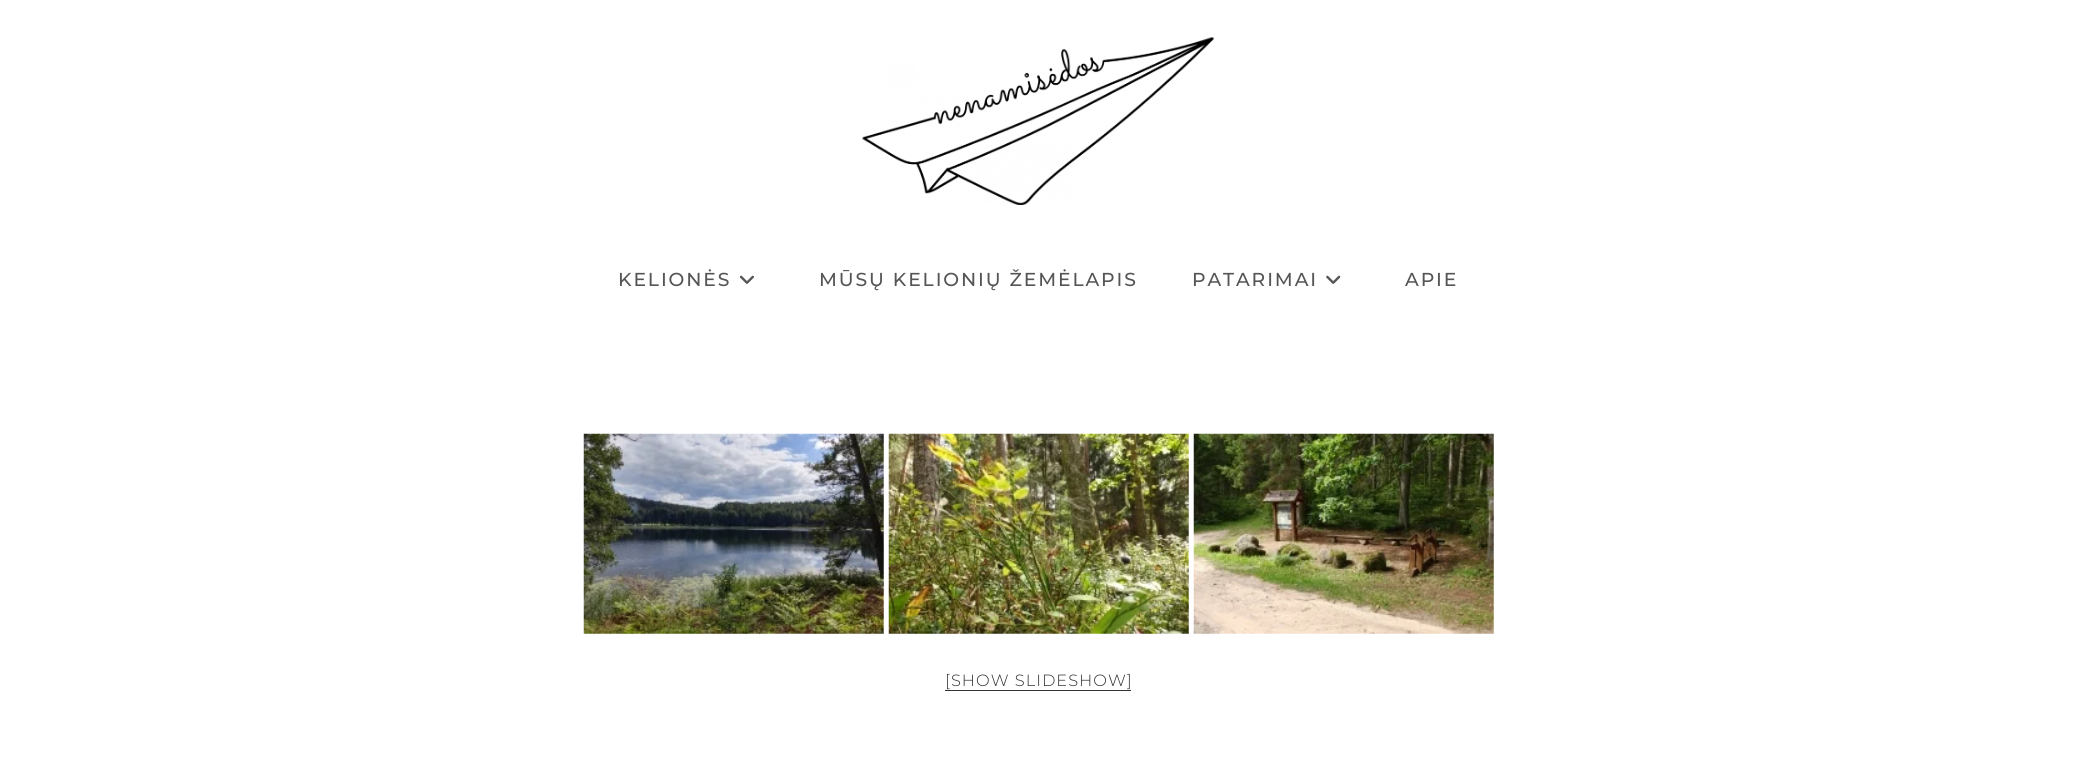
#include <cairo/cairo.h>
#include <math.h>
#include <stddef.h>


static void draw_spaced(cairo_t *cr, double x, double y, const char *s, double letter, double word) {
  cairo_move_to(cr, x, y);
  while (*s) {
    char ch[5] = {0};
    int n = 0;
    do ch[n++] = *s++; while ((*s & 0xC0) == 0x80);
    cairo_show_text(cr, ch);
    cairo_rel_move_to(cr, letter + word * (*ch == ' '), 0);
  }
}

static void draw_image(cairo_t *cr, const char *path, double x, double y, double w, double h) {
  cairo_surface_t *image = cairo_image_surface_create_from_png(path);
  cairo_save(cr);
  cairo_set_source_surface(cr, image, x, y);
  cairo_rectangle(cr, x, y, w, h);
  cairo_fill(cr);
  cairo_restore(cr);
  cairo_surface_destroy(image);
}

static void draw(cairo_t *cr) {
  cairo_set_source_rgb(cr, 1, 1, 1);
  cairo_paint(cr);
  draw_image(cr, "images/1.png", 862, 37, 352, 168);
  draw_image(cr, "images/2.png", 740, 275, 14, 9);
  draw_image(cr, "images/3.png", 1326, 275, 15, 9);
  draw_image(cr, "images/4.png", 583, 433, 301, 201);
  draw_image(cr, "images/5.png", 888, 433, 301, 201);
  draw_image(cr, "images/6.png", 1193, 433, 301, 201);
  cairo_set_source_rgb(cr, 51 / 255.0, 51 / 255.0, 51 / 255.0);
  cairo_rectangle(cr, 945, 690, 186, 1);
  cairo_fill(cr);
  cairo_select_font_face(cr, "Montserrat Medium", CAIRO_FONT_SLANT_NORMAL, CAIRO_FONT_WEIGHT_NORMAL);
  cairo_set_font_size(cr, 18.75);
  cairo_set_source_rgb(cr, 85 / 255.0, 85 / 255.0, 85 / 255.0);
  draw_spaced(cr, 618, 286, "KELIONĖS", 1.9, 0);
  draw_spaced(cr, 819, 286, "MŪSŲ KELIONIŲ ŽEMĖLAPIS", 1.9, 0);
  draw_spaced(cr, 1192, 286, "PATARIMAI", 1.9, 0);
  draw_spaced(cr, 1405, 286, "APIE", 1.9, 0);
  cairo_select_font_face(cr, "Montserrat Light", CAIRO_FONT_SLANT_NORMAL, CAIRO_FONT_WEIGHT_NORMAL);
  cairo_set_font_size(cr, 16.25);
  cairo_set_source_rgb(cr, 51 / 255.0, 51 / 255.0, 51 / 255.0);
  draw_spaced(cr, 945, 686, "[SHOW SLIDESHOW]", 1, 0);
}

int main(void) {
  cairo_surface_t *surface = cairo_image_surface_create(CAIRO_FORMAT_RGB24, 2076, 757);
  cairo_t *cr = cairo_create(surface);
  cairo_font_options_t *options = cairo_font_options_create();
  cairo_font_options_set_hint_metrics(options, CAIRO_HINT_METRICS_OFF);
  cairo_font_options_set_hint_style(options, CAIRO_HINT_STYLE_NONE);
  cairo_set_font_options(cr, options);
  cairo_set_miter_limit(cr, 4);
  draw(cr);
  cairo_surface_write_to_png(surface, "out.png");
  cairo_font_options_destroy(options);
  cairo_destroy(cr);
  cairo_surface_destroy(surface);
  return 0;
}
